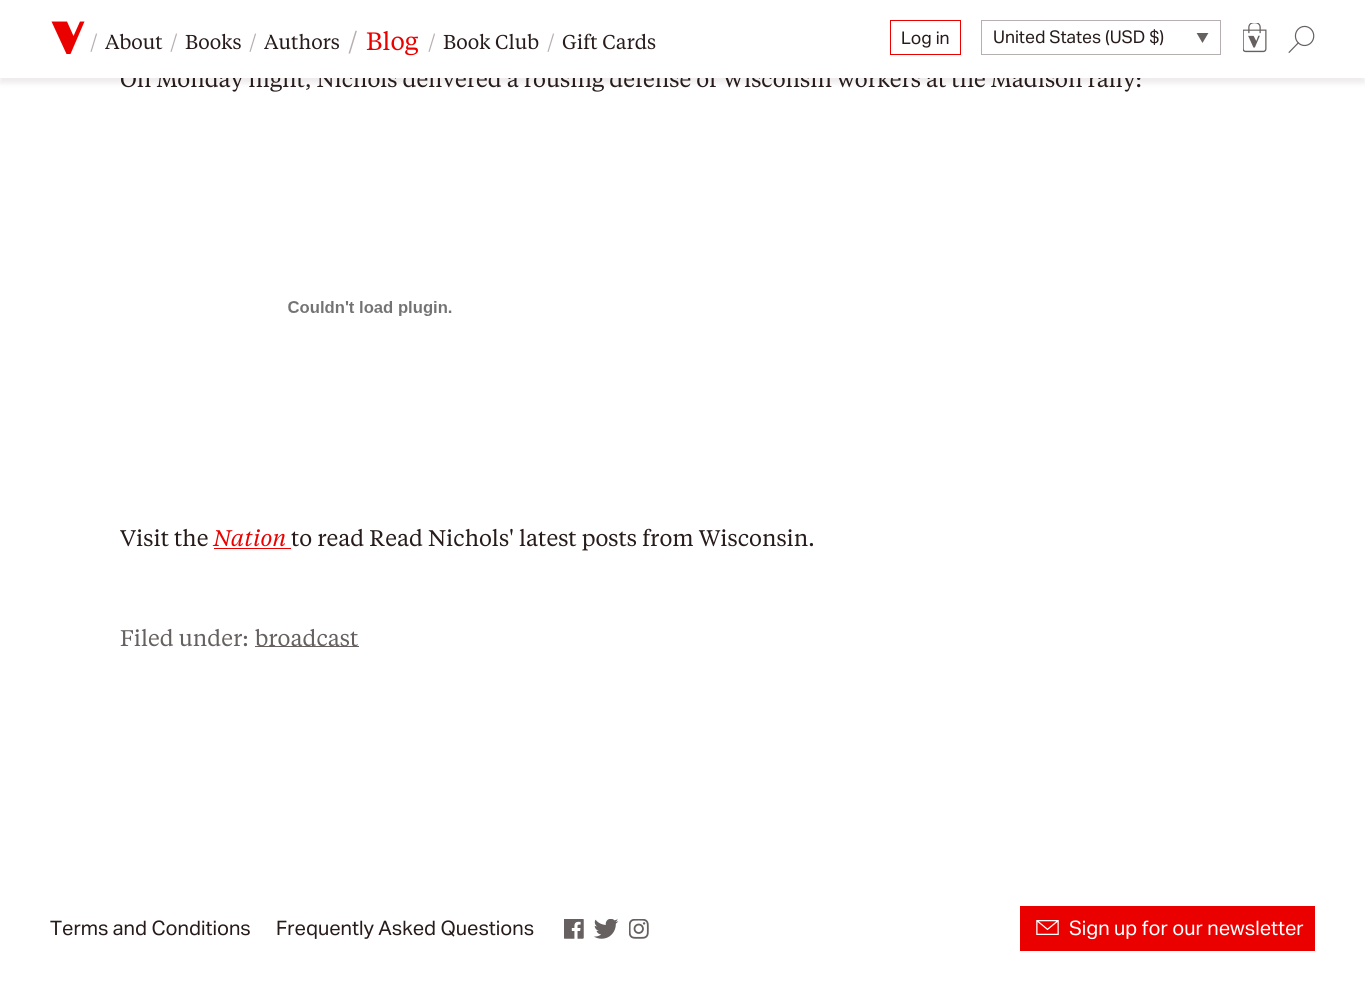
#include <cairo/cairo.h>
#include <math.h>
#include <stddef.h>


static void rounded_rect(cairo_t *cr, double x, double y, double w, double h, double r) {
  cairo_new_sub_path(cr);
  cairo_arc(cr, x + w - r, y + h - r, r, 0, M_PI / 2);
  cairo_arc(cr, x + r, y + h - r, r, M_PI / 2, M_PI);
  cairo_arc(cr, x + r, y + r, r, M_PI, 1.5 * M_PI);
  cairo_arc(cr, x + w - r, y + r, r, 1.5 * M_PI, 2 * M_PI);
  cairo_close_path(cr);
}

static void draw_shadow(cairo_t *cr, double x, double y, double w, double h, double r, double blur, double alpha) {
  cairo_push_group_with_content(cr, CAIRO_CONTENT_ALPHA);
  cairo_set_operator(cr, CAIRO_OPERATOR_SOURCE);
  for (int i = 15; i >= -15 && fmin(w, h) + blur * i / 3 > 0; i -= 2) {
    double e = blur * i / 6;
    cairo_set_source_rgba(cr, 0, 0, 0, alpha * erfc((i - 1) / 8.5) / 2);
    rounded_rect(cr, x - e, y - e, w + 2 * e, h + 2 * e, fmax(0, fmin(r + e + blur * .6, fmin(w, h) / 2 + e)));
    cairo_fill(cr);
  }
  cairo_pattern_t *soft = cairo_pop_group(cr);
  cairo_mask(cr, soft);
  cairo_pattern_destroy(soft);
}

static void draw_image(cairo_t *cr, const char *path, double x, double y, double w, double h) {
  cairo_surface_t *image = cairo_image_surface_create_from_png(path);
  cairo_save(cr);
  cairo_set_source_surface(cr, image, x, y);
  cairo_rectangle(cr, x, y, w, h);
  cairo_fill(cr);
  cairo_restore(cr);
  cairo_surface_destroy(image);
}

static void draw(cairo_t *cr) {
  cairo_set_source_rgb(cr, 1, 1, 1);
  cairo_paint(cr);
  cairo_set_source_rgb(cr, 183 / 255.0, 174 / 255.0, 174 / 255.0);
  draw_shadow(cr, 0, -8, 1365, 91, 0, 2.5, 0.25);
  draw_image(cr, "images/3.png", 288, 301, 164, 15);
  cairo_set_source_rgb(cr, 235 / 255.0, 0, 0);
  cairo_rectangle(cr, 214, 548, 77, 1);
  cairo_fill(cr);
  cairo_set_source_rgb(cr, 102 / 255.0, 96 / 255.0, 96 / 255.0);
  cairo_rectangle(cr, 255, 646, 104, 1);
  cairo_fill(cr);
  draw_image(cr, "images/4.png", 564, 919, 20, 20);
  draw_image(cr, "images/5.png", 594, 919, 25, 20);
  draw_image(cr, "images/6.png", 629, 919, 20, 20);
  cairo_set_source_rgb(cr, 235 / 255.0, 0, 0);
  cairo_rectangle(cr, 1020, 906, 295, 45);
  cairo_fill(cr);
  draw_image(cr, "images/7.png", 1036, 920, 23, 15);
  cairo_select_font_face(cr, "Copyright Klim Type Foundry", CAIRO_FONT_SLANT_NORMAL, CAIRO_FONT_WEIGHT_NORMAL);
  cairo_set_font_size(cr, 22.5);
  cairo_set_source_rgb(cr, 39 / 255.0, 27 / 255.0, 27 / 255.0);
  cairo_move_to(cr, 120, 87);
  cairo_show_text(cr, "On Monday night, Nichols delivered a rousing defense of Wisconsin workers at the Madison rally:");
  cairo_set_source_rgb(cr, 1, 1, 1);
  cairo_rectangle(cr, 0, 0, 1365, 78);
  cairo_fill(cr);
  draw_image(cr, "images/2.png", 1288, 25, 27, 28);
  draw_image(cr, "images/1.png", 1243, 23, 24, 30);
  cairo_rectangle(cr, 981.5, 20.5, 239, 34);
  cairo_set_source_rgb(cr, 182 / 255.0, 175 / 255.0, 175 / 255.0);
  cairo_set_line_width(cr, 1);
  cairo_stroke(cr);
  cairo_save(cr);
  cairo_rectangle(cr, 1195, 33, 15, 11);
  cairo_clip(cr);
  cairo_set_source_rgb(cr, 102 / 255.0, 96 / 255.0, 96 / 255.0);
  cairo_new_path(cr);
  cairo_move_to(cr, 1202.5, 43);
  cairo_line_to(cr, 1196, 32);
  cairo_line_to(cr, 1209, 32);
  cairo_close_path(cr);
  cairo_fill(cr);
  cairo_restore(cr);
  cairo_select_font_face(cr, "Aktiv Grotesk", CAIRO_FONT_SLANT_NORMAL, CAIRO_FONT_WEIGHT_NORMAL);
  cairo_set_font_size(cr, 17.5);
  cairo_set_source_rgb(cr, 39 / 255.0, 27 / 255.0, 27 / 255.0);
  cairo_move_to(cr, 993, 43);
  cairo_show_text(cr, "United States (USD $)");
  cairo_rectangle(cr, 890.5, 20.5, 70, 34);
  cairo_set_source_rgb(cr, 235 / 255.0, 0, 0);
  cairo_stroke(cr);
  cairo_set_source_rgb(cr, 39 / 255.0, 27 / 255.0, 27 / 255.0);
  cairo_move_to(cr, 901, 44);
  cairo_show_text(cr, "Log in");
  cairo_select_font_face(cr, "Copyright Klim Type Foundry", CAIRO_FONT_SLANT_NORMAL, CAIRO_FONT_WEIGHT_NORMAL);
  cairo_set_font_size(cr, 20);
  cairo_set_source_rgb(cr, 182 / 255.0, 175 / 255.0, 175 / 255.0);
  cairo_move_to(cr, 547, 49);
  cairo_show_text(cr, "/");
  cairo_move_to(cr, 428, 49);
  cairo_show_text(cr, "/");
  cairo_set_font_size(cr, 25);
  cairo_move_to(cr, 348, 50);
  cairo_show_text(cr, "/");
  cairo_set_source_rgb(cr, 235 / 255.0, 0, 0);
  cairo_move_to(cr, 366, 50);
  cairo_show_text(cr, "Blog");
  cairo_set_font_size(cr, 20);
  cairo_set_source_rgb(cr, 182 / 255.0, 175 / 255.0, 175 / 255.0);
  cairo_move_to(cr, 249, 49);
  cairo_show_text(cr, "/");
  cairo_move_to(cr, 170, 49);
  cairo_show_text(cr, "/");
  cairo_move_to(cr, 90, 49);
  cairo_show_text(cr, "/");
  cairo_set_source_rgb(cr, 39 / 255.0, 27 / 255.0, 27 / 255.0);
  cairo_move_to(cr, 562, 49);
  cairo_show_text(cr, "Gift Cards");
  cairo_move_to(cr, 443, 49);
  cairo_show_text(cr, "Book Club");
  cairo_move_to(cr, 264, 49);
  cairo_show_text(cr, "Authors");
  cairo_move_to(cr, 185, 49);
  cairo_show_text(cr, "Books");
  cairo_move_to(cr, 105, 49);
  cairo_show_text(cr, "About");
  cairo_set_source_rgb(cr, 235 / 255.0, 0, 0);
  cairo_new_path(cr);
  cairo_move_to(cr, 51.5, 21.5);
  cairo_line_to(cr, 67, 21.5);
  cairo_line_to(cr, 73.5, 36);
  cairo_line_to(cr, 80, 21.5);
  cairo_line_to(cr, 84.5, 21.5);
  cairo_line_to(cr, 70.5, 54);
  cairo_line_to(cr, 66.5, 54);
  cairo_close_path(cr);
  cairo_fill(cr);
  cairo_set_font_size(cr, 22.5);
  cairo_set_source_rgb(cr, 39 / 255.0, 27 / 255.0, 27 / 255.0);
  cairo_move_to(cr, 120, 546);
  cairo_show_text(cr, "Visit the");
  cairo_select_font_face(cr, "Copyright Klim Type Foundry", CAIRO_FONT_SLANT_ITALIC, CAIRO_FONT_WEIGHT_NORMAL);
  cairo_set_source_rgb(cr, 235 / 255.0, 0, 0);
  cairo_move_to(cr, 213, 546);
  cairo_show_text(cr, "Nation");
  cairo_select_font_face(cr, "Copyright Klim Type Foundry", CAIRO_FONT_SLANT_NORMAL, CAIRO_FONT_WEIGHT_NORMAL);
  cairo_set_source_rgb(cr, 39 / 255.0, 27 / 255.0, 27 / 255.0);
  cairo_move_to(cr, 291, 546);
  cairo_show_text(cr, "to read Read Nichols' latest posts from Wisconsin.");
  cairo_set_source_rgb(cr, 102 / 255.0, 96 / 255.0, 96 / 255.0);
  cairo_move_to(cr, 120, 646);
  cairo_show_text(cr, "Filed under:");
  cairo_move_to(cr, 255, 646);
  cairo_show_text(cr, "broadcast");
  cairo_select_font_face(cr, "Aktiv Grotesk", CAIRO_FONT_SLANT_NORMAL, CAIRO_FONT_WEIGHT_NORMAL);
  cairo_set_font_size(cr, 20);
  cairo_set_source_rgb(cr, 39 / 255.0, 27 / 255.0, 27 / 255.0);
  cairo_move_to(cr, 50, 935);
  cairo_show_text(cr, "Terms and Conditions");
  cairo_move_to(cr, 276, 935);
  cairo_show_text(cr, "Frequently Asked Questions");
  cairo_set_source_rgb(cr, 1, 1, 1);
  cairo_move_to(cr, 1069, 935);
  cairo_show_text(cr, "Sign up for our newsletter");
}

int main(void) {
  cairo_surface_t *surface = cairo_image_surface_create(CAIRO_FORMAT_RGB24, 1365, 993);
  cairo_t *cr = cairo_create(surface);
  cairo_font_options_t *options = cairo_font_options_create();
  cairo_font_options_set_hint_metrics(options, CAIRO_HINT_METRICS_OFF);
  cairo_font_options_set_hint_style(options, CAIRO_HINT_STYLE_NONE);
  cairo_set_font_options(cr, options);
  cairo_set_miter_limit(cr, 4);
  draw(cr);
  cairo_surface_write_to_png(surface, "out.png");
  cairo_font_options_destroy(options);
  cairo_destroy(cr);
  cairo_surface_destroy(surface);
  return 0;
}
